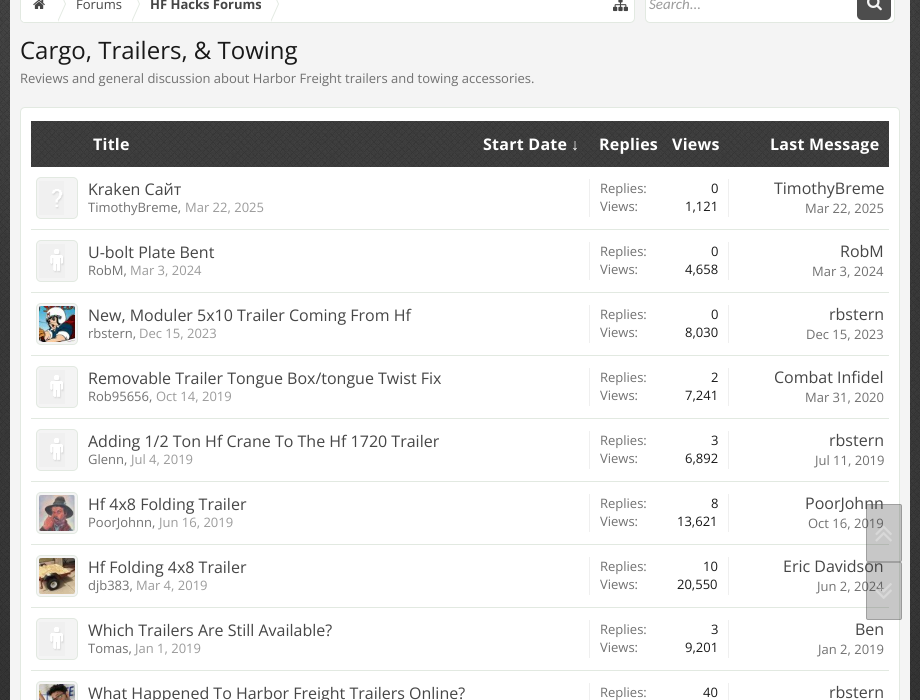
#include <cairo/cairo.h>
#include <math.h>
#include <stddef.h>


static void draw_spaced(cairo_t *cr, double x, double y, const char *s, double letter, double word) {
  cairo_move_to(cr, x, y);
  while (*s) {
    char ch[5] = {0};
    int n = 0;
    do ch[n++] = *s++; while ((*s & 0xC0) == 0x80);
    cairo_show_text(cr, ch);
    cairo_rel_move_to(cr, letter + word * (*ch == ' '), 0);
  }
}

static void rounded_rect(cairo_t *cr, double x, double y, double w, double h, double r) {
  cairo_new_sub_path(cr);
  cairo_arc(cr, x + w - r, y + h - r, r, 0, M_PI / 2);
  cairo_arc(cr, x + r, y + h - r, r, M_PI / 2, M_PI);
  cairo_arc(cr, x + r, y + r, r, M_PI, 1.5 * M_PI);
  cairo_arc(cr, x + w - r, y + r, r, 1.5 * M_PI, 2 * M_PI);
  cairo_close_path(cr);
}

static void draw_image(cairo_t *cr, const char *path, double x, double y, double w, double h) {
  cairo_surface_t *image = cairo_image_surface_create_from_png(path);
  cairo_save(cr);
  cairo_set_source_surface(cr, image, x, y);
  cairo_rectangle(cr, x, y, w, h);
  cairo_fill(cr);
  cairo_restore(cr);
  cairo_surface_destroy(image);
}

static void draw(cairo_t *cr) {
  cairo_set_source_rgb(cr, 1, 1, 1);
  cairo_paint(cr);
  draw_image(cr, "images/1.png", 0, 0, 920, 700);
  draw_image(cr, "images/2.png", 0, 0, 920, 700);
  cairo_set_source_rgb(cr, 244 / 255.0, 244 / 255.0, 244 / 255.0);
  cairo_rectangle(cr, 10, 0, 900, 700);
  cairo_fill(cr);
  cairo_set_source_rgb(cr, 1, 1, 1);
  rounded_rect(cr, 20.5, -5.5, 614, 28, 4.5);
  cairo_fill_preserve(cr);
  cairo_set_source_rgb(cr, 226 / 255.0, 233 / 255.0, 225 / 255.0);
  cairo_set_line_width(cr, 1);
  cairo_stroke(cr);
  cairo_save(cr);
  rounded_rect(cr, 21, -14, 613, 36, 4);
  cairo_clip(cr);
  cairo_set_source_rgb(cr, 1, 1, 1);
  cairo_new_path(cr);
  cairo_move_to(cr, 26, -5);
  cairo_line_to(cr, 58, -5);
  cairo_line_to(cr, 58, 23);
  cairo_line_to(cr, 26, 23);
  cairo_curve_to(cr, 23, 23, 21, 21, 21, 18);
  cairo_line_to(cr, 21, 0);
  cairo_curve_to(cr, 21, -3, 23, -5, 26, -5);
  cairo_close_path(cr);
  cairo_fill(cr);
  cairo_restore(cr);
  draw_image(cr, "images/3.png", 33, 0, 12, 9);
  cairo_new_path(cr);
  cairo_move_to(cr, 58, 22);
  cairo_line_to(cr, 58, -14);
  cairo_line_to(cr, 66, 4);
  cairo_close_path(cr);
  cairo_fill(cr);
  cairo_set_source_rgb(cr, 1, 1, 1);
  cairo_new_path(cr);
  cairo_move_to(cr, 57, 22);
  cairo_line_to(cr, 57, -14);
  cairo_line_to(cr, 65, 4);
  cairo_close_path(cr);
  cairo_fill(cr);
  cairo_set_source_rgb(cr, 226 / 255.0, 233 / 255.0, 225 / 255.0);
  cairo_new_path(cr);
  cairo_move_to(cr, 132, 22);
  cairo_line_to(cr, 132, -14);
  cairo_line_to(cr, 140, 4);
  cairo_close_path(cr);
  cairo_fill(cr);
  cairo_set_source_rgb(cr, 1, 1, 1);
  cairo_new_path(cr);
  cairo_move_to(cr, 131, 22);
  cairo_line_to(cr, 131, -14);
  cairo_line_to(cr, 139, 4);
  cairo_close_path(cr);
  cairo_fill(cr);
  cairo_set_source_rgb(cr, 226 / 255.0, 233 / 255.0, 225 / 255.0);
  cairo_new_path(cr);
  cairo_move_to(cr, 271, 22);
  cairo_line_to(cr, 271, -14);
  cairo_line_to(cr, 279, 4);
  cairo_close_path(cr);
  cairo_fill(cr);
  cairo_set_source_rgb(cr, 1, 1, 1);
  cairo_new_path(cr);
  cairo_move_to(cr, 270, 22);
  cairo_line_to(cr, 270, -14);
  cairo_line_to(cr, 278, 4);
  cairo_close_path(cr);
  cairo_fill(cr);
  draw_image(cr, "images/4.png", 613, 0, 15, 12);
  rounded_rect(cr, 645.5, -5.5, 249, 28, 4.5);
  cairo_fill_preserve(cr);
  cairo_set_source_rgb(cr, 226 / 255.0, 233 / 255.0, 225 / 255.0);
  cairo_stroke(cr);
  cairo_set_source_rgb(cr, 77 / 255.0, 77 / 255.0, 77 / 255.0);
  rounded_rect(cr, 857, -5, 34, 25, 5);
  cairo_fill(cr);
  draw_image(cr, "images/5.png", 867, 0, 15, 11);
  cairo_set_source_rgb(cr, 1, 1, 1);
  rounded_rect(cr, 20.5, 107.5, 879, 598, 4.5);
  cairo_fill_preserve(cr);
  cairo_set_source_rgb(cr, 226 / 255.0, 233 / 255.0, 225 / 255.0);
  cairo_stroke(cr);
  cairo_set_source_rgb(cr, 67 / 255.0, 67 / 255.0, 67 / 255.0);
  cairo_rectangle(cr, 31, 121, 858, 46);
  cairo_fill(cr);
  draw_image(cr, "images/6.png", 31, 121, 858, 46);
  cairo_set_source_rgb(cr, 226 / 255.0, 233 / 255.0, 225 / 255.0);
  cairo_rectangle(cr, 31, 229, 858, 1);
  cairo_fill(cr);
  cairo_set_source_rgb(cr, 244 / 255.0, 244 / 255.0, 244 / 255.0);
  rounded_rect(cr, 36.5, 177.5, 41, 41, 4.5);
  cairo_fill_preserve(cr);
  cairo_set_source_rgb(cr, 226 / 255.0, 233 / 255.0, 225 / 255.0);
  cairo_stroke(cr);
  draw_image(cr, "images/7.png", 39, 181, 25, 34);
  cairo_set_source_rgb(cr, 239 / 255.0, 239 / 255.0, 239 / 255.0);
  cairo_rectangle(cr, 728, 179, 1, 38);
  cairo_fill(cr);
  cairo_rectangle(cr, 589, 179, 1, 38);
  cairo_fill(cr);
  cairo_set_source_rgb(cr, 226 / 255.0, 233 / 255.0, 225 / 255.0);
  cairo_rectangle(cr, 31, 292, 858, 1);
  cairo_fill(cr);
  cairo_set_source_rgb(cr, 244 / 255.0, 244 / 255.0, 244 / 255.0);
  rounded_rect(cr, 36.5, 240.5, 41, 41, 4.5);
  cairo_fill_preserve(cr);
  cairo_set_source_rgb(cr, 226 / 255.0, 233 / 255.0, 225 / 255.0);
  cairo_stroke(cr);
  draw_image(cr, "images/8.png", 39, 244, 26, 34);
  cairo_set_source_rgb(cr, 239 / 255.0, 239 / 255.0, 239 / 255.0);
  cairo_rectangle(cr, 728, 242, 1, 38);
  cairo_fill(cr);
  cairo_rectangle(cr, 589, 242, 1, 38);
  cairo_fill(cr);
  cairo_set_source_rgb(cr, 226 / 255.0, 233 / 255.0, 225 / 255.0);
  cairo_rectangle(cr, 31, 355, 858, 1);
  cairo_fill(cr);
  cairo_set_source_rgb(cr, 244 / 255.0, 244 / 255.0, 244 / 255.0);
  rounded_rect(cr, 36.5, 303.5, 41, 41, 4.5);
  cairo_fill_preserve(cr);
  cairo_set_source_rgb(cr, 226 / 255.0, 233 / 255.0, 225 / 255.0);
  cairo_stroke(cr);
  draw_image(cr, "images/9.png", 39, 306, 36, 36);
  cairo_set_source_rgb(cr, 239 / 255.0, 239 / 255.0, 239 / 255.0);
  cairo_rectangle(cr, 728, 305, 1, 38);
  cairo_fill(cr);
  cairo_rectangle(cr, 589, 305, 1, 38);
  cairo_fill(cr);
  cairo_set_source_rgb(cr, 226 / 255.0, 233 / 255.0, 225 / 255.0);
  cairo_rectangle(cr, 31, 418, 858, 1);
  cairo_fill(cr);
  cairo_set_source_rgb(cr, 244 / 255.0, 244 / 255.0, 244 / 255.0);
  rounded_rect(cr, 36.5, 366.5, 41, 41, 4.5);
  cairo_fill_preserve(cr);
  cairo_set_source_rgb(cr, 226 / 255.0, 233 / 255.0, 225 / 255.0);
  cairo_stroke(cr);
  draw_image(cr, "images/8.png", 39, 370, 26, 34);
  cairo_set_source_rgb(cr, 239 / 255.0, 239 / 255.0, 239 / 255.0);
  cairo_rectangle(cr, 728, 368, 1, 38);
  cairo_fill(cr);
  cairo_rectangle(cr, 589, 368, 1, 38);
  cairo_fill(cr);
  cairo_set_source_rgb(cr, 226 / 255.0, 233 / 255.0, 225 / 255.0);
  cairo_rectangle(cr, 31, 481, 858, 1);
  cairo_fill(cr);
  cairo_set_source_rgb(cr, 244 / 255.0, 244 / 255.0, 244 / 255.0);
  rounded_rect(cr, 36.5, 429.5, 41, 41, 4.5);
  cairo_fill_preserve(cr);
  cairo_set_source_rgb(cr, 226 / 255.0, 233 / 255.0, 225 / 255.0);
  cairo_stroke(cr);
  draw_image(cr, "images/8.png", 39, 433, 26, 34);
  cairo_set_source_rgb(cr, 239 / 255.0, 239 / 255.0, 239 / 255.0);
  cairo_rectangle(cr, 728, 431, 1, 38);
  cairo_fill(cr);
  cairo_rectangle(cr, 589, 431, 1, 38);
  cairo_fill(cr);
  cairo_set_source_rgb(cr, 226 / 255.0, 233 / 255.0, 225 / 255.0);
  cairo_rectangle(cr, 31, 544, 858, 1);
  cairo_fill(cr);
  cairo_set_source_rgb(cr, 244 / 255.0, 244 / 255.0, 244 / 255.0);
  rounded_rect(cr, 36.5, 492.5, 41, 41, 4.5);
  cairo_fill_preserve(cr);
  cairo_set_source_rgb(cr, 226 / 255.0, 233 / 255.0, 225 / 255.0);
  cairo_stroke(cr);
  draw_image(cr, "images/10.png", 39, 495, 36, 36);
  cairo_set_source_rgb(cr, 239 / 255.0, 239 / 255.0, 239 / 255.0);
  cairo_rectangle(cr, 728, 494, 1, 38);
  cairo_fill(cr);
  cairo_rectangle(cr, 589, 494, 1, 38);
  cairo_fill(cr);
  cairo_set_source_rgb(cr, 226 / 255.0, 233 / 255.0, 225 / 255.0);
  cairo_rectangle(cr, 31, 607, 858, 1);
  cairo_fill(cr);
  cairo_set_source_rgb(cr, 244 / 255.0, 244 / 255.0, 244 / 255.0);
  rounded_rect(cr, 36.5, 555.5, 41, 41, 4.5);
  cairo_fill_preserve(cr);
  cairo_set_source_rgb(cr, 226 / 255.0, 233 / 255.0, 225 / 255.0);
  cairo_stroke(cr);
  draw_image(cr, "images/11.png", 39, 558, 36, 36);
  cairo_set_source_rgb(cr, 239 / 255.0, 239 / 255.0, 239 / 255.0);
  cairo_rectangle(cr, 728, 557, 1, 38);
  cairo_fill(cr);
  cairo_rectangle(cr, 589, 557, 1, 38);
  cairo_fill(cr);
  cairo_set_source_rgb(cr, 226 / 255.0, 233 / 255.0, 225 / 255.0);
  cairo_rectangle(cr, 31, 670, 858, 1);
  cairo_fill(cr);
  cairo_set_source_rgb(cr, 244 / 255.0, 244 / 255.0, 244 / 255.0);
  rounded_rect(cr, 36.5, 618.5, 41, 41, 4.5);
  cairo_fill_preserve(cr);
  cairo_set_source_rgb(cr, 226 / 255.0, 233 / 255.0, 225 / 255.0);
  cairo_stroke(cr);
  draw_image(cr, "images/8.png", 39, 622, 26, 34);
  cairo_set_source_rgb(cr, 239 / 255.0, 239 / 255.0, 239 / 255.0);
  cairo_rectangle(cr, 728, 620, 1, 38);
  cairo_fill(cr);
  cairo_rectangle(cr, 589, 620, 1, 38);
  cairo_fill(cr);
  cairo_set_source_rgb(cr, 244 / 255.0, 244 / 255.0, 244 / 255.0);
  rounded_rect(cr, 36.5, 681.5, 41, 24, 4.5);
  cairo_fill_preserve(cr);
  cairo_set_source_rgb(cr, 226 / 255.0, 233 / 255.0, 225 / 255.0);
  cairo_stroke(cr);
  draw_image(cr, "images/12.png", 39, 684, 36, 16);
  cairo_set_source_rgb(cr, 239 / 255.0, 239 / 255.0, 239 / 255.0);
  cairo_rectangle(cr, 728, 683, 1, 17);
  cairo_fill(cr);
  cairo_rectangle(cr, 589, 683, 1, 17);
  cairo_fill(cr);
  cairo_select_font_face(cr, "Open Sans", CAIRO_FONT_SLANT_NORMAL, CAIRO_FONT_WEIGHT_NORMAL);
  cairo_set_font_size(cr, 13);
  cairo_set_source_rgb(cr, 70 / 255.0, 70 / 255.0, 70 / 255.0);
  cairo_move_to(cr, 76, 9);
  cairo_show_text(cr, "Forums");
  cairo_select_font_face(cr, "Open Sans", CAIRO_FONT_SLANT_NORMAL, CAIRO_FONT_WEIGHT_BOLD);
  cairo_move_to(cr, 150, 9);
  cairo_show_text(cr, "HF Hacks Forums");
  cairo_select_font_face(cr, "Carlito", CAIRO_FONT_SLANT_ITALIC, CAIRO_FONT_WEIGHT_NORMAL);
  cairo_set_font_size(cr, 15);
  cairo_set_source_rgb(cr, 155 / 255.0, 155 / 255.0, 155 / 255.0);
  cairo_move_to(cr, 649, 9);
  cairo_show_text(cr, "Search...");
  cairo_select_font_face(cr, "Open Sans", CAIRO_FONT_SLANT_NORMAL, CAIRO_FONT_WEIGHT_NORMAL);
  cairo_set_font_size(cr, 24);
  cairo_set_source_rgb(cr, 25 / 255.0, 25 / 255.0, 25 / 255.0);
  cairo_move_to(cr, 20, 59);
  cairo_show_text(cr, "Cargo, Trailers, & Towing");
  cairo_set_font_size(cr, 13);
  cairo_set_source_rgb(cr, 113 / 255.0, 113 / 255.0, 113 / 255.0);
  cairo_move_to(cr, 20, 83);
  cairo_show_text(cr, "Reviews and general discussion about Harbor Freight trailers and towing accessories.");
  cairo_select_font_face(cr, "Open Sans", CAIRO_FONT_SLANT_NORMAL, CAIRO_FONT_WEIGHT_BOLD);
  cairo_set_font_size(cr, 16);
  cairo_set_source_rgb(cr, 1, 1, 1);
  draw_spaced(cr, 93, 150, "Title", 0.25, 0);
  draw_spaced(cr, 483, 150, "Start Date", 0.25, 0);
  cairo_select_font_face(cr, "Liberation Sans", CAIRO_FONT_SLANT_NORMAL, CAIRO_FONT_WEIGHT_BOLD);
  draw_spaced(cr, 571, 150, "↓", 0.25, 0);
  cairo_select_font_face(cr, "Open Sans", CAIRO_FONT_SLANT_NORMAL, CAIRO_FONT_WEIGHT_BOLD);
  draw_spaced(cr, 599, 150, "Replies", 0.25, 0);
  draw_spaced(cr, 672, 150, "Views", 0.25, 0);
  draw_spaced(cr, 770, 150, "Last Message", 0.25, 0);
  cairo_select_font_face(cr, "Open Sans", CAIRO_FONT_SLANT_NORMAL, CAIRO_FONT_WEIGHT_NORMAL);
  cairo_set_source_rgb(cr, 70 / 255.0, 70 / 255.0, 70 / 255.0);
  cairo_move_to(cr, 88, 195);
  cairo_show_text(cr, "Kraken Сайт");
  cairo_set_font_size(cr, 13);
  cairo_set_source_rgb(cr, 113 / 255.0, 113 / 255.0, 113 / 255.0);
  cairo_move_to(cr, 88, 212);
  cairo_show_text(cr, "TimothyBreme,");
  cairo_set_source_rgb(cr, 155 / 255.0, 155 / 255.0, 155 / 255.0);
  cairo_move_to(cr, 185, 212);
  cairo_show_text(cr, "Mar 22, 2025");
  cairo_set_source_rgb(cr, 113 / 255.0, 113 / 255.0, 113 / 255.0);
  cairo_move_to(cr, 600, 193);
  cairo_show_text(cr, "Replies:");
  cairo_set_source_rgb(cr, 25 / 255.0, 25 / 255.0, 25 / 255.0);
  cairo_move_to(cr, 711, 193);
  cairo_show_text(cr, "0");
  cairo_set_source_rgb(cr, 113 / 255.0, 113 / 255.0, 113 / 255.0);
  cairo_move_to(cr, 600, 211);
  cairo_show_text(cr, "Views:");
  cairo_set_source_rgb(cr, 25 / 255.0, 25 / 255.0, 25 / 255.0);
  cairo_move_to(cr, 685, 211);
  cairo_show_text(cr, "1,121");
  cairo_set_font_size(cr, 16);
  cairo_set_source_rgb(cr, 70 / 255.0, 70 / 255.0, 70 / 255.0);
  cairo_move_to(cr, 774, 194);
  cairo_show_text(cr, "TimothyBreme");
  cairo_set_font_size(cr, 13);
  cairo_set_source_rgb(cr, 113 / 255.0, 113 / 255.0, 113 / 255.0);
  cairo_move_to(cr, 805, 213);
  cairo_show_text(cr, "Mar 22, 2025");
  cairo_set_font_size(cr, 16);
  cairo_set_source_rgb(cr, 70 / 255.0, 70 / 255.0, 70 / 255.0);
  cairo_move_to(cr, 88, 258);
  cairo_show_text(cr, "U-bolt Plate Bent");
  cairo_set_font_size(cr, 13);
  cairo_set_source_rgb(cr, 113 / 255.0, 113 / 255.0, 113 / 255.0);
  cairo_move_to(cr, 88, 275);
  cairo_show_text(cr, "RobM,");
  cairo_set_source_rgb(cr, 155 / 255.0, 155 / 255.0, 155 / 255.0);
  cairo_move_to(cr, 130, 275);
  cairo_show_text(cr, "Mar 3, 2024");
  cairo_set_source_rgb(cr, 113 / 255.0, 113 / 255.0, 113 / 255.0);
  cairo_move_to(cr, 600, 256);
  cairo_show_text(cr, "Replies:");
  cairo_set_source_rgb(cr, 25 / 255.0, 25 / 255.0, 25 / 255.0);
  cairo_move_to(cr, 711, 256);
  cairo_show_text(cr, "0");
  cairo_set_source_rgb(cr, 113 / 255.0, 113 / 255.0, 113 / 255.0);
  cairo_move_to(cr, 600, 274);
  cairo_show_text(cr, "Views:");
  cairo_set_source_rgb(cr, 25 / 255.0, 25 / 255.0, 25 / 255.0);
  cairo_move_to(cr, 685, 274);
  cairo_show_text(cr, "4,658");
  cairo_set_font_size(cr, 16);
  cairo_set_source_rgb(cr, 70 / 255.0, 70 / 255.0, 70 / 255.0);
  cairo_move_to(cr, 840, 257);
  cairo_show_text(cr, "RobM");
  cairo_set_font_size(cr, 13);
  cairo_set_source_rgb(cr, 113 / 255.0, 113 / 255.0, 113 / 255.0);
  cairo_move_to(cr, 812, 276);
  cairo_show_text(cr, "Mar 3, 2024");
  cairo_set_font_size(cr, 16);
  cairo_set_source_rgb(cr, 70 / 255.0, 70 / 255.0, 70 / 255.0);
  cairo_move_to(cr, 88, 321);
  cairo_show_text(cr, "New, Moduler 5x10 Trailer Coming From Hf");
  cairo_set_font_size(cr, 13);
  cairo_set_source_rgb(cr, 113 / 255.0, 113 / 255.0, 113 / 255.0);
  cairo_move_to(cr, 88, 338);
  cairo_show_text(cr, "rbstern,");
  cairo_set_source_rgb(cr, 155 / 255.0, 155 / 255.0, 155 / 255.0);
  cairo_move_to(cr, 139, 338);
  cairo_show_text(cr, "Dec 15, 2023");
  cairo_set_source_rgb(cr, 113 / 255.0, 113 / 255.0, 113 / 255.0);
  cairo_move_to(cr, 600, 319);
  cairo_show_text(cr, "Replies:");
  cairo_set_source_rgb(cr, 25 / 255.0, 25 / 255.0, 25 / 255.0);
  cairo_move_to(cr, 711, 319);
  cairo_show_text(cr, "0");
  cairo_set_source_rgb(cr, 113 / 255.0, 113 / 255.0, 113 / 255.0);
  cairo_move_to(cr, 600, 337);
  cairo_show_text(cr, "Views:");
  cairo_set_source_rgb(cr, 25 / 255.0, 25 / 255.0, 25 / 255.0);
  cairo_move_to(cr, 685, 337);
  cairo_show_text(cr, "8,030");
  cairo_set_font_size(cr, 16);
  cairo_set_source_rgb(cr, 70 / 255.0, 70 / 255.0, 70 / 255.0);
  cairo_move_to(cr, 829, 320);
  cairo_show_text(cr, "rbstern");
  cairo_set_font_size(cr, 13);
  cairo_set_source_rgb(cr, 113 / 255.0, 113 / 255.0, 113 / 255.0);
  cairo_move_to(cr, 806, 339);
  cairo_show_text(cr, "Dec 15, 2023");
  cairo_set_font_size(cr, 16);
  cairo_set_source_rgb(cr, 70 / 255.0, 70 / 255.0, 70 / 255.0);
  cairo_move_to(cr, 88, 384);
  cairo_show_text(cr, "Removable Trailer Tongue Box/tongue Twist Fix");
  cairo_set_font_size(cr, 13);
  cairo_set_source_rgb(cr, 113 / 255.0, 113 / 255.0, 113 / 255.0);
  cairo_move_to(cr, 88, 401);
  cairo_show_text(cr, "Rob95656,");
  cairo_set_source_rgb(cr, 155 / 255.0, 155 / 255.0, 155 / 255.0);
  cairo_move_to(cr, 156, 401);
  cairo_show_text(cr, "Oct 14, 2019");
  cairo_set_source_rgb(cr, 113 / 255.0, 113 / 255.0, 113 / 255.0);
  cairo_move_to(cr, 600, 382);
  cairo_show_text(cr, "Replies:");
  cairo_set_source_rgb(cr, 25 / 255.0, 25 / 255.0, 25 / 255.0);
  cairo_move_to(cr, 711, 382);
  cairo_show_text(cr, "2");
  cairo_set_source_rgb(cr, 113 / 255.0, 113 / 255.0, 113 / 255.0);
  cairo_move_to(cr, 600, 400);
  cairo_show_text(cr, "Views:");
  cairo_set_source_rgb(cr, 25 / 255.0, 25 / 255.0, 25 / 255.0);
  cairo_move_to(cr, 685, 400);
  cairo_show_text(cr, "7,241");
  cairo_set_font_size(cr, 16);
  cairo_set_source_rgb(cr, 70 / 255.0, 70 / 255.0, 70 / 255.0);
  cairo_move_to(cr, 774, 383);
  cairo_show_text(cr, "Combat Infidel");
  cairo_set_font_size(cr, 13);
  cairo_set_source_rgb(cr, 113 / 255.0, 113 / 255.0, 113 / 255.0);
  cairo_move_to(cr, 805, 402);
  cairo_show_text(cr, "Mar 31, 2020");
  cairo_set_font_size(cr, 16);
  cairo_set_source_rgb(cr, 70 / 255.0, 70 / 255.0, 70 / 255.0);
  cairo_move_to(cr, 88, 447);
  cairo_show_text(cr, "Adding 1/2 Ton Hf Crane To The Hf 1720 Trailer");
  cairo_set_font_size(cr, 13);
  cairo_set_source_rgb(cr, 113 / 255.0, 113 / 255.0, 113 / 255.0);
  cairo_move_to(cr, 88, 464);
  cairo_show_text(cr, "Glenn,");
  cairo_set_source_rgb(cr, 155 / 255.0, 155 / 255.0, 155 / 255.0);
  cairo_move_to(cr, 131, 464);
  cairo_show_text(cr, "Jul 4, 2019");
  cairo_set_source_rgb(cr, 113 / 255.0, 113 / 255.0, 113 / 255.0);
  cairo_move_to(cr, 600, 445);
  cairo_show_text(cr, "Replies:");
  cairo_set_source_rgb(cr, 25 / 255.0, 25 / 255.0, 25 / 255.0);
  cairo_move_to(cr, 711, 445);
  cairo_show_text(cr, "3");
  cairo_set_source_rgb(cr, 113 / 255.0, 113 / 255.0, 113 / 255.0);
  cairo_move_to(cr, 600, 463);
  cairo_show_text(cr, "Views:");
  cairo_set_source_rgb(cr, 25 / 255.0, 25 / 255.0, 25 / 255.0);
  cairo_move_to(cr, 685, 463);
  cairo_show_text(cr, "6,892");
  cairo_set_font_size(cr, 16);
  cairo_set_source_rgb(cr, 70 / 255.0, 70 / 255.0, 70 / 255.0);
  cairo_move_to(cr, 829, 446);
  cairo_show_text(cr, "rbstern");
  cairo_set_font_size(cr, 13);
  cairo_set_source_rgb(cr, 113 / 255.0, 113 / 255.0, 113 / 255.0);
  cairo_move_to(cr, 815, 465);
  cairo_show_text(cr, "Jul 11, 2019");
  cairo_set_font_size(cr, 16);
  cairo_set_source_rgb(cr, 70 / 255.0, 70 / 255.0, 70 / 255.0);
  cairo_move_to(cr, 88, 510);
  cairo_show_text(cr, "Hf 4x8 Folding Trailer");
  cairo_set_font_size(cr, 13);
  cairo_set_source_rgb(cr, 113 / 255.0, 113 / 255.0, 113 / 255.0);
  cairo_move_to(cr, 88, 527);
  cairo_show_text(cr, "PoorJohnn,");
  cairo_set_source_rgb(cr, 155 / 255.0, 155 / 255.0, 155 / 255.0);
  cairo_move_to(cr, 159, 527);
  cairo_show_text(cr, "Jun 16, 2019");
  cairo_set_source_rgb(cr, 113 / 255.0, 113 / 255.0, 113 / 255.0);
  cairo_move_to(cr, 600, 508);
  cairo_show_text(cr, "Replies:");
  cairo_set_source_rgb(cr, 25 / 255.0, 25 / 255.0, 25 / 255.0);
  cairo_move_to(cr, 711, 508);
  cairo_show_text(cr, "8");
  cairo_set_source_rgb(cr, 113 / 255.0, 113 / 255.0, 113 / 255.0);
  cairo_move_to(cr, 600, 526);
  cairo_show_text(cr, "Views:");
  cairo_set_source_rgb(cr, 25 / 255.0, 25 / 255.0, 25 / 255.0);
  cairo_move_to(cr, 677, 526);
  cairo_show_text(cr, "13,621");
  cairo_set_font_size(cr, 16);
  cairo_set_source_rgb(cr, 70 / 255.0, 70 / 255.0, 70 / 255.0);
  cairo_move_to(cr, 805, 509);
  cairo_show_text(cr, "PoorJohnn");
  cairo_set_font_size(cr, 13);
  cairo_set_source_rgb(cr, 113 / 255.0, 113 / 255.0, 113 / 255.0);
  cairo_move_to(cr, 808, 528);
  cairo_show_text(cr, "Oct 16, 2019");
  cairo_set_font_size(cr, 16);
  cairo_set_source_rgb(cr, 70 / 255.0, 70 / 255.0, 70 / 255.0);
  cairo_move_to(cr, 88, 573);
  cairo_show_text(cr, "Hf Folding 4x8 Trailer");
  cairo_set_font_size(cr, 13);
  cairo_set_source_rgb(cr, 113 / 255.0, 113 / 255.0, 113 / 255.0);
  cairo_move_to(cr, 88, 590);
  cairo_show_text(cr, "djb383,");
  cairo_set_source_rgb(cr, 155 / 255.0, 155 / 255.0, 155 / 255.0);
  cairo_move_to(cr, 136, 590);
  cairo_show_text(cr, "Mar 4, 2019");
  cairo_set_source_rgb(cr, 113 / 255.0, 113 / 255.0, 113 / 255.0);
  cairo_move_to(cr, 600, 571);
  cairo_show_text(cr, "Replies:");
  cairo_set_source_rgb(cr, 25 / 255.0, 25 / 255.0, 25 / 255.0);
  cairo_move_to(cr, 703, 571);
  cairo_show_text(cr, "10");
  cairo_set_source_rgb(cr, 113 / 255.0, 113 / 255.0, 113 / 255.0);
  cairo_move_to(cr, 600, 589);
  cairo_show_text(cr, "Views:");
  cairo_set_source_rgb(cr, 25 / 255.0, 25 / 255.0, 25 / 255.0);
  cairo_move_to(cr, 677, 589);
  cairo_show_text(cr, "20,550");
  cairo_set_font_size(cr, 16);
  cairo_set_source_rgb(cr, 70 / 255.0, 70 / 255.0, 70 / 255.0);
  cairo_move_to(cr, 783, 572);
  cairo_show_text(cr, "Eric Davidson");
  cairo_set_font_size(cr, 13);
  cairo_set_source_rgb(cr, 113 / 255.0, 113 / 255.0, 113 / 255.0);
  cairo_move_to(cr, 817, 591);
  cairo_show_text(cr, "Jun 2, 2024");
  cairo_set_font_size(cr, 16);
  cairo_set_source_rgb(cr, 70 / 255.0, 70 / 255.0, 70 / 255.0);
  cairo_move_to(cr, 88, 636);
  cairo_show_text(cr, "Which Trailers Are Still Available?");
  cairo_set_font_size(cr, 13);
  cairo_set_source_rgb(cr, 113 / 255.0, 113 / 255.0, 113 / 255.0);
  cairo_move_to(cr, 88, 653);
  cairo_show_text(cr, "Tomas,");
  cairo_set_source_rgb(cr, 155 / 255.0, 155 / 255.0, 155 / 255.0);
  cairo_move_to(cr, 135, 653);
  cairo_show_text(cr, "Jan 1, 2019");
  cairo_set_source_rgb(cr, 113 / 255.0, 113 / 255.0, 113 / 255.0);
  cairo_move_to(cr, 600, 634);
  cairo_show_text(cr, "Replies:");
  cairo_set_source_rgb(cr, 25 / 255.0, 25 / 255.0, 25 / 255.0);
  cairo_move_to(cr, 711, 634);
  cairo_show_text(cr, "3");
  cairo_set_source_rgb(cr, 113 / 255.0, 113 / 255.0, 113 / 255.0);
  cairo_move_to(cr, 600, 652);
  cairo_show_text(cr, "Views:");
  cairo_set_source_rgb(cr, 25 / 255.0, 25 / 255.0, 25 / 255.0);
  cairo_move_to(cr, 685, 652);
  cairo_show_text(cr, "9,201");
  cairo_set_font_size(cr, 16);
  cairo_set_source_rgb(cr, 70 / 255.0, 70 / 255.0, 70 / 255.0);
  cairo_move_to(cr, 855, 635);
  cairo_show_text(cr, "Ben");
  cairo_set_font_size(cr, 13);
  cairo_set_source_rgb(cr, 113 / 255.0, 113 / 255.0, 113 / 255.0);
  cairo_move_to(cr, 818, 654);
  cairo_show_text(cr, "Jan 2, 2019");
  cairo_set_font_size(cr, 16);
  cairo_set_source_rgb(cr, 70 / 255.0, 70 / 255.0, 70 / 255.0);
  cairo_move_to(cr, 88, 699);
  cairo_show_text(cr, "What Happened To Harbor Freight Trailers Online?");
  cairo_set_font_size(cr, 13);
  cairo_set_source_rgb(cr, 113 / 255.0, 113 / 255.0, 113 / 255.0);
  cairo_move_to(cr, 600, 697);
  cairo_show_text(cr, "Replies:");
  cairo_set_source_rgb(cr, 25 / 255.0, 25 / 255.0, 25 / 255.0);
  cairo_move_to(cr, 703, 697);
  cairo_show_text(cr, "40");
  cairo_set_font_size(cr, 16);
  cairo_set_source_rgb(cr, 70 / 255.0, 70 / 255.0, 70 / 255.0);
  cairo_move_to(cr, 829, 698);
  cairo_show_text(cr, "rbstern");
  cairo_set_source_rgba(cr, 67 / 255.0, 67 / 255.0, 67 / 255.0, 0.3);
  rounded_rect(cr, 866, 504, 36, 58, 2);
  cairo_fill(cr);
  rounded_rect(cr, 866.5, 504.5, 35, 57, 1.5);
  cairo_stroke(cr);
  draw_image(cr, "images/13.png", 875, 525, 17, 17);
  rounded_rect(cr, 866, 562, 36, 58, 2);
  cairo_fill(cr);
  rounded_rect(cr, 866.5, 562.5, 35, 57, 1.5);
  cairo_stroke(cr);
  draw_image(cr, "images/14.png", 875, 583, 17, 16);
}

int main(void) {
  cairo_surface_t *surface = cairo_image_surface_create(CAIRO_FORMAT_RGB24, 920, 700);
  cairo_t *cr = cairo_create(surface);
  cairo_font_options_t *options = cairo_font_options_create();
  cairo_font_options_set_hint_metrics(options, CAIRO_HINT_METRICS_OFF);
  cairo_font_options_set_hint_style(options, CAIRO_HINT_STYLE_NONE);
  cairo_set_font_options(cr, options);
  cairo_set_miter_limit(cr, 4);
  draw(cr);
  cairo_surface_write_to_png(surface, "out.png");
  cairo_font_options_destroy(options);
  cairo_destroy(cr);
  cairo_surface_destroy(surface);
  return 0;
}
